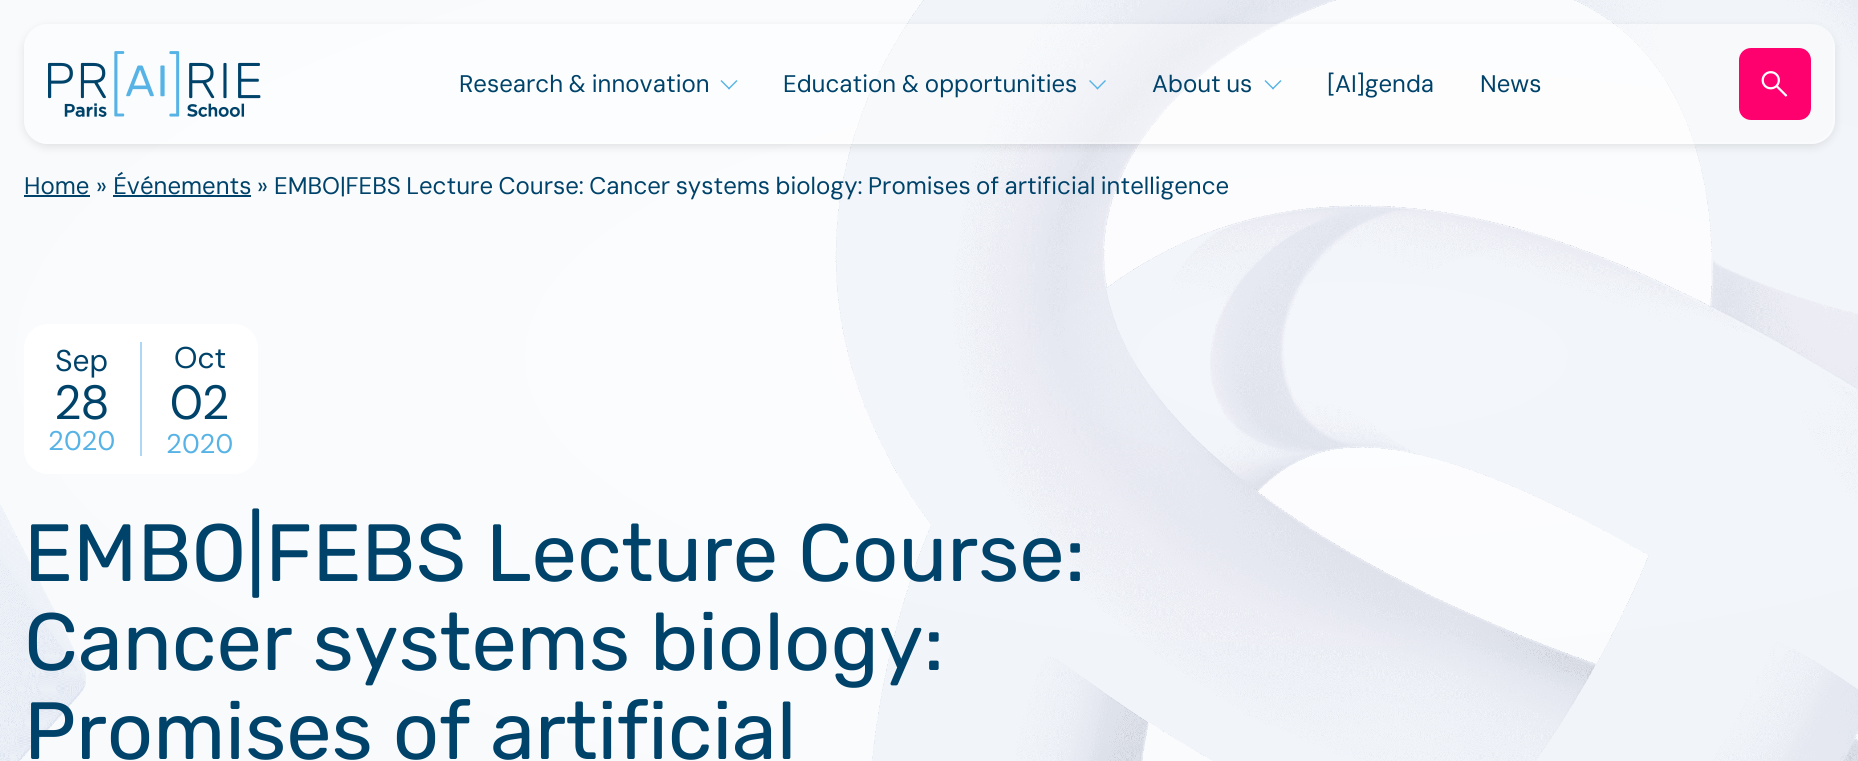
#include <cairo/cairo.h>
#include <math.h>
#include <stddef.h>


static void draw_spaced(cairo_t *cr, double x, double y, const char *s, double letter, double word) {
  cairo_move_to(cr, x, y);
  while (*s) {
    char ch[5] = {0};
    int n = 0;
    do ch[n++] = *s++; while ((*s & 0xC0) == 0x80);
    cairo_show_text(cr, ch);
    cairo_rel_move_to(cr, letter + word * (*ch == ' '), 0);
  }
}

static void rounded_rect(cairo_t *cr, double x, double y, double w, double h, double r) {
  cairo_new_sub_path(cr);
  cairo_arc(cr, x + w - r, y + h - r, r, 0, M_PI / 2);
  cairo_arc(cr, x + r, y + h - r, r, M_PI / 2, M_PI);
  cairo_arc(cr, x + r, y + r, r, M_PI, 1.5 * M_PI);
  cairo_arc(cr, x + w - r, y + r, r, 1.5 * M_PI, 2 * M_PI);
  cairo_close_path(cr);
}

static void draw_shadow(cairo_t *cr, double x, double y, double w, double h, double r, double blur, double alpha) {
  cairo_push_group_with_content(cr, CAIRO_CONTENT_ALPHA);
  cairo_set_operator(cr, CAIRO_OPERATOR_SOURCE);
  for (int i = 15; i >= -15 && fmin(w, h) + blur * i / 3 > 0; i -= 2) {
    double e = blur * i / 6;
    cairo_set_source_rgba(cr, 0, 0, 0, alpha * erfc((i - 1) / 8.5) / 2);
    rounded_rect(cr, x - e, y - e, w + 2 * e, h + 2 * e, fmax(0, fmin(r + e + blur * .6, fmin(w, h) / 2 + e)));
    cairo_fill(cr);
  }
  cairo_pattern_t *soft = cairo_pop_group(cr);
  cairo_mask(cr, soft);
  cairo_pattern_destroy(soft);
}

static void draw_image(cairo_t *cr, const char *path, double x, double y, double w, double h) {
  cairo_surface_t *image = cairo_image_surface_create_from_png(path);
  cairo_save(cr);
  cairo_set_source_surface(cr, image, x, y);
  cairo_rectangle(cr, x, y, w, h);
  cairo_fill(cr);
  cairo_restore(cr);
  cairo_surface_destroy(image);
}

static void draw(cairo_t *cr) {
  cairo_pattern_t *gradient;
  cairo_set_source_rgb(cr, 1, 1, 1);
  cairo_paint(cr);
  gradient = cairo_pattern_create_radial(0, 0, 0, 0, 0, 1);
  cairo_pattern_set_matrix(gradient, &(cairo_matrix_t){1.0 / 3156, 0, 0, 1.0 / 1096, -1.0 * 1357 / 3156, -1.0 * 357 / 1096});
  cairo_pattern_add_color_stop_rgba(gradient, 0.02, 253 / 255.0, 253 / 255.0, 1, 1);
  cairo_pattern_add_color_stop_rgba(gradient, 1, 243 / 255.0, 247 / 255.0, 249 / 255.0, 1);
  cairo_set_source(cr, gradient);
  cairo_pattern_destroy(gradient);
  cairo_rectangle(cr, 0, 0, 1858, 761);
  cairo_fill(cr);
  draw_image(cr, "images/3.png", 835, 0, 1023, 761);
  cairo_save(cr);
  cairo_set_fill_rule(cr, CAIRO_FILL_RULE_EVEN_ODD);
  cairo_new_path(cr);
  cairo_move_to(cr, 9, 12);
  cairo_line_to(cr, 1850, 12);
  cairo_line_to(cr, 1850, 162);
  cairo_line_to(cr, 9, 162);
  cairo_close_path(cr);
  cairo_move_to(cr, 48, 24);
  cairo_line_to(cr, 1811, 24);
  cairo_curve_to(cr, 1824.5, 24, 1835, 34.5, 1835, 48);
  cairo_line_to(cr, 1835, 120);
  cairo_curve_to(cr, 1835, 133.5, 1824.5, 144, 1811, 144);
  cairo_line_to(cr, 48, 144);
  cairo_curve_to(cr, 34.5, 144, 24, 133.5, 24, 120);
  cairo_line_to(cr, 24, 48);
  cairo_curve_to(cr, 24, 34.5, 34.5, 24, 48, 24);
  cairo_close_path(cr);
  cairo_clip(cr);
  cairo_set_source_rgb(cr, 0, 0, 0);
  draw_shadow(cr, 24, 27, 1811, 120, 24, 4.5, 0.1);
  cairo_restore(cr);
  cairo_set_source_rgba(cr, 1, 1, 1, 0.4);
  rounded_rect(cr, 24, 24, 1811, 120, 24);
  cairo_fill(cr);
  cairo_set_source_rgba(cr, 1, 1, 1, 0.25);
  cairo_new_path(cr);
  cairo_move_to(cr, 31, 137);
  cairo_curve_to(cr, 35, 141, 41, 144, 48, 144);
  cairo_line_to(cr, 1811, 144);
  cairo_curve_to(cr, 1824, 144, 1835, 133, 1835, 120);
  cairo_line_to(cr, 1835, 48);
  cairo_curve_to(cr, 1835, 40, 1832, 34, 1826, 29);
  cairo_curve_to(cr, 1830, 34, 1833, 40, 1833, 46);
  cairo_line_to(cr, 1833, 118);
  cairo_curve_to(cr, 1833, 132, 1822, 142, 1809, 142);
  cairo_line_to(cr, 46, 142);
  cairo_curve_to(cr, 40, 142, 35, 140, 31, 137);
  cairo_close_path(cr);
  cairo_fill(cr);
  draw_image(cr, "images/1.png", 48, 51, 213, 66);
  cairo_set_source_rgb(cr, 87 / 255.0, 179 / 255.0, 229 / 255.0);
  cairo_new_path(cr);
  cairo_move_to(cr, 736.5, 80);
  cairo_line_to(cr, 737.5, 81);
  cairo_line_to(cr, 729, 89.5);
  cairo_line_to(cr, 728, 88.5);
  cairo_close_path(cr);
  cairo_fill(cr);
  cairo_new_path(cr);
  cairo_move_to(cr, 721.5, 80);
  cairo_line_to(cr, 730, 88.5);
  cairo_line_to(cr, 729, 89.5);
  cairo_line_to(cr, 720.5, 81);
  cairo_close_path(cr);
  cairo_fill(cr);
  cairo_new_path(cr);
  cairo_move_to(cr, 1105, 80);
  cairo_line_to(cr, 1106, 81);
  cairo_line_to(cr, 1097.5, 89.5);
  cairo_line_to(cr, 1096.5, 88.5);
  cairo_close_path(cr);
  cairo_fill(cr);
  cairo_new_path(cr);
  cairo_move_to(cr, 1090, 80);
  cairo_line_to(cr, 1098.5, 88.5);
  cairo_line_to(cr, 1097.5, 89.5);
  cairo_line_to(cr, 1089, 81);
  cairo_close_path(cr);
  cairo_fill(cr);
  cairo_new_path(cr);
  cairo_move_to(cr, 1280.5, 80);
  cairo_line_to(cr, 1281.5, 81);
  cairo_line_to(cr, 1273, 89.5);
  cairo_line_to(cr, 1272, 88.5);
  cairo_close_path(cr);
  cairo_fill(cr);
  cairo_new_path(cr);
  cairo_move_to(cr, 1265.5, 80);
  cairo_line_to(cr, 1274, 88.5);
  cairo_line_to(cr, 1273, 89.5);
  cairo_line_to(cr, 1264.5, 81);
  cairo_close_path(cr);
  cairo_fill(cr);
  cairo_set_source_rgb(cr, 1, 0, 111 / 255.0);
  rounded_rect(cr, 1739, 48, 72, 72, 12);
  cairo_fill(cr);
  draw_image(cr, "images/2.png", 1761, 71, 27, 26);
  cairo_set_source_rgb(cr, 0, 67 / 255.0, 106 / 255.0);
  cairo_rectangle(cr, 24, 195, 66, 2);
  cairo_fill(cr);
  cairo_rectangle(cr, 113, 195, 138, 2);
  cairo_fill(cr);
  cairo_set_source_rgb(cr, 1, 1, 1);
  rounded_rect(cr, 24, 324, 234, 150, 24);
  cairo_fill(cr);
  cairo_set_source_rgb(cr, 173 / 255.0, 216 / 255.0, 245 / 255.0);
  cairo_rectangle(cr, 140, 342, 2, 114);
  cairo_fill(cr);
  draw_image(cr, "images/4.png", 0, 505, 86, 256);
  cairo_select_font_face(cr, "DM Sans", CAIRO_FONT_SLANT_NORMAL, CAIRO_FONT_WEIGHT_NORMAL);
  cairo_set_font_size(cr, 24);
  cairo_set_source_rgb(cr, 0, 67 / 255.0, 106 / 255.0);
  draw_spaced(cr, 459, 92, "Research & innovation", 0, -1);
  draw_spaced(cr, 783, 92, "Education & opportunities", 0, -1);
  draw_spaced(cr, 1152, 92, "About us", 0, -1);
  cairo_move_to(cr, 1327, 92);
  cairo_show_text(cr, "[AI]genda");
  cairo_move_to(cr, 1480, 92);
  cairo_show_text(cr, "News");
  cairo_move_to(cr, 24, 194);
  cairo_show_text(cr, "Home » Événements");
  cairo_move_to(cr, 257, 194);
  cairo_show_text(cr, "»");
  draw_spaced(cr, 274, 194, "EMBO|FEBS Lecture Course: Cancer systems biology: Promises of artificial intelligence", 0, -1);
  cairo_set_font_size(cr, 30);
  cairo_move_to(cr, 55, 371);
  cairo_show_text(cr, "Sep");
  cairo_select_font_face(cr, "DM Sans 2", CAIRO_FONT_SLANT_NORMAL, CAIRO_FONT_WEIGHT_NORMAL);
  cairo_set_font_size(cr, 48);
  cairo_move_to(cr, 55, 419);
  cairo_show_text(cr, "28");
  cairo_select_font_face(cr, "DM Sans", CAIRO_FONT_SLANT_NORMAL, CAIRO_FONT_WEIGHT_NORMAL);
  cairo_set_font_size(cr, 27);
  cairo_set_source_rgb(cr, 87 / 255.0, 179 / 255.0, 229 / 255.0);
  cairo_move_to(cr, 48, 450);
  cairo_show_text(cr, "2020");
  cairo_select_font_face(cr, "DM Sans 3", CAIRO_FONT_SLANT_NORMAL, CAIRO_FONT_WEIGHT_NORMAL);
  cairo_set_font_size(cr, 30);
  cairo_set_source_rgb(cr, 0, 67 / 255.0, 106 / 255.0);
  cairo_move_to(cr, 174, 368);
  cairo_show_text(cr, "Oct");
  cairo_select_font_face(cr, "DM Sans 2", CAIRO_FONT_SLANT_NORMAL, CAIRO_FONT_WEIGHT_NORMAL);
  cairo_set_font_size(cr, 48);
  cairo_move_to(cr, 170, 419);
  cairo_show_text(cr, "02");
  cairo_select_font_face(cr, "DM Sans", CAIRO_FONT_SLANT_NORMAL, CAIRO_FONT_WEIGHT_NORMAL);
  cairo_set_font_size(cr, 27);
  cairo_set_source_rgb(cr, 87 / 255.0, 179 / 255.0, 229 / 255.0);
  cairo_move_to(cr, 166, 453);
  cairo_show_text(cr, "2020");
  cairo_select_font_face(cr, "Rubik", CAIRO_FONT_SLANT_NORMAL, CAIRO_FONT_WEIGHT_NORMAL);
  cairo_set_font_size(cr, 81);
  cairo_set_source_rgb(cr, 0, 67 / 255.0, 106 / 255.0);
  cairo_move_to(cr, 24, 581);
  cairo_show_text(cr, "EMBO|FEBS Lecture Course:");
  cairo_move_to(cr, 24, 670);
  cairo_show_text(cr, "Cancer systems biology:");
  cairo_move_to(cr, 24, 759);
  cairo_show_text(cr, "Promises of artificial");
}

int main(void) {
  cairo_surface_t *surface = cairo_image_surface_create(CAIRO_FORMAT_RGB24, 1858, 761);
  cairo_t *cr = cairo_create(surface);
  cairo_font_options_t *options = cairo_font_options_create();
  cairo_font_options_set_hint_metrics(options, CAIRO_HINT_METRICS_OFF);
  cairo_font_options_set_hint_style(options, CAIRO_HINT_STYLE_NONE);
  cairo_set_font_options(cr, options);
  cairo_set_miter_limit(cr, 4);
  draw(cr);
  cairo_surface_write_to_png(surface, "out.png");
  cairo_font_options_destroy(options);
  cairo_destroy(cr);
  cairo_surface_destroy(surface);
  return 0;
}
